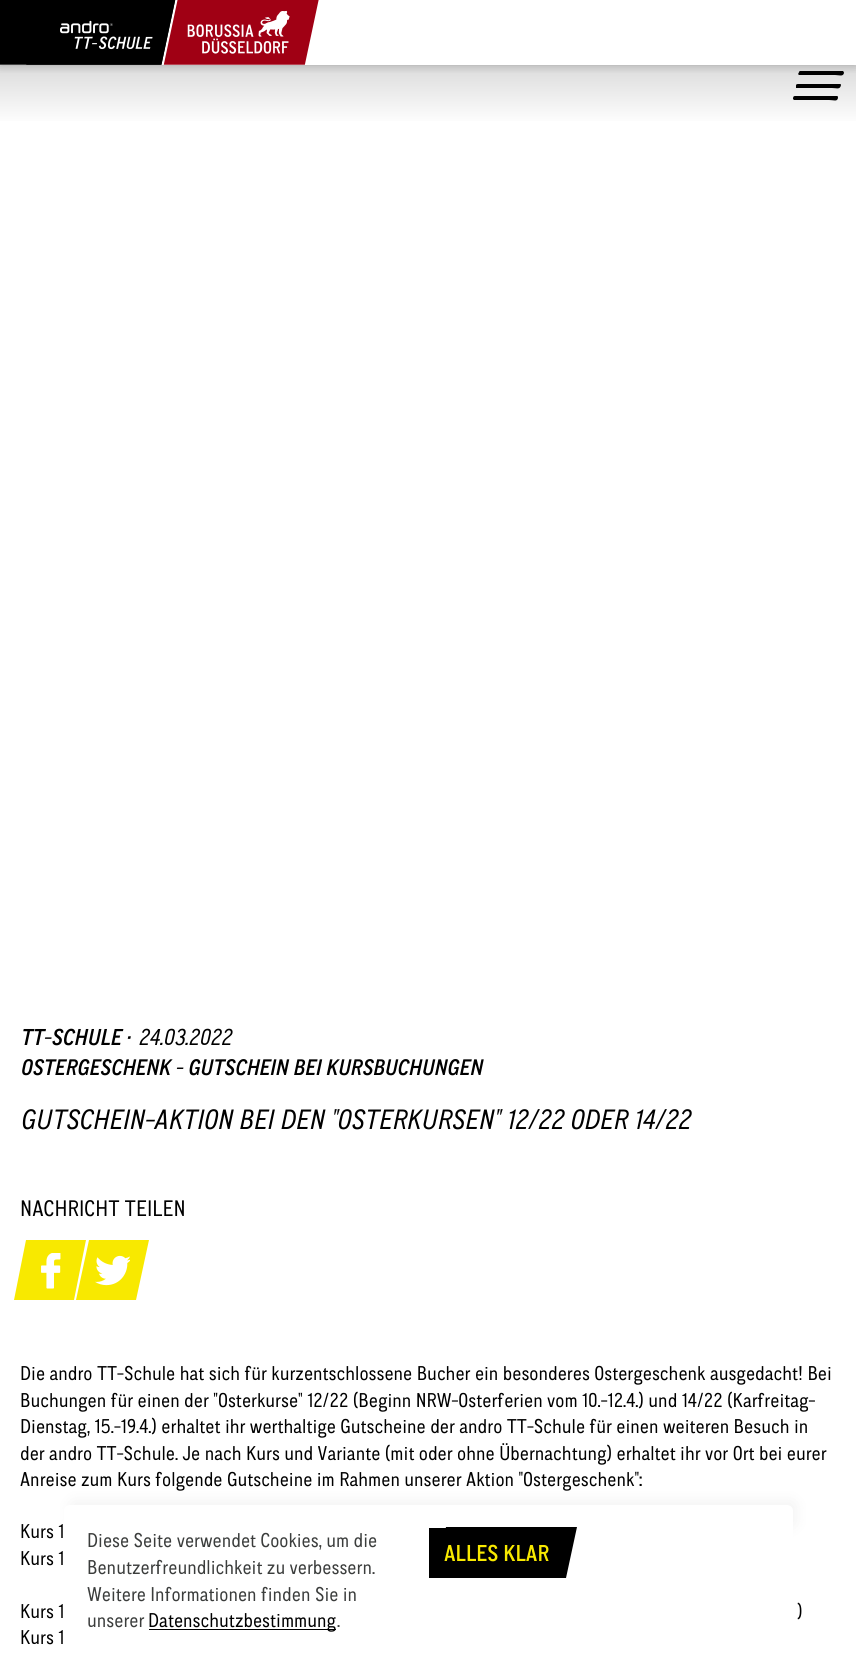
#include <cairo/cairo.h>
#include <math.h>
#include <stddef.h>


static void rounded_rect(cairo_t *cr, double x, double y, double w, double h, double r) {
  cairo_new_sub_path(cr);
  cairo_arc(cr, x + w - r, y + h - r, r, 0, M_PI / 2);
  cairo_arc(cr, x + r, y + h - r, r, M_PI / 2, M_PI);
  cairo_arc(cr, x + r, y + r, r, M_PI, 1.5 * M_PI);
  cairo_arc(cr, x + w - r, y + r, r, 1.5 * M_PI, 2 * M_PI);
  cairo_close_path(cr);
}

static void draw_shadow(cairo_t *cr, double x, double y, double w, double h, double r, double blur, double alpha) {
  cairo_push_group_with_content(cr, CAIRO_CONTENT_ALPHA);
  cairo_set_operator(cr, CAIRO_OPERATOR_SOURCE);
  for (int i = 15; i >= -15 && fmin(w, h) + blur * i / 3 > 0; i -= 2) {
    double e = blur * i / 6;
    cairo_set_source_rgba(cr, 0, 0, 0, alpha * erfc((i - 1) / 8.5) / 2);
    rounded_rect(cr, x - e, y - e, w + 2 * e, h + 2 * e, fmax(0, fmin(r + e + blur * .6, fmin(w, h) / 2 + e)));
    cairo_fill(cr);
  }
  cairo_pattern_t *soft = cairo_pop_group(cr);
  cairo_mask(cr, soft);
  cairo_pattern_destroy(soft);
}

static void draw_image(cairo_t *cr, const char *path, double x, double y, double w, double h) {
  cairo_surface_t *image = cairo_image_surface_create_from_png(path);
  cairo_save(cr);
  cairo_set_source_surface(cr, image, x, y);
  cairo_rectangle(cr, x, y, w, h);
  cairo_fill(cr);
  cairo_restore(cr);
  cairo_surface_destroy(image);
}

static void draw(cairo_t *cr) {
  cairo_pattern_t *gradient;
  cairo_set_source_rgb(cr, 1, 1, 1);
  cairo_paint(cr);
  gradient = cairo_pattern_create_linear(428, 65, 428, 145);
  cairo_pattern_add_color_stop_rgba(gradient, 0, 219 / 255.0, 219 / 255.0, 219 / 255.0, 1);
  cairo_pattern_add_color_stop_rgba(gradient, 0.75, 1, 1, 1, 1);
  cairo_set_source(cr, gradient);
  cairo_pattern_destroy(gradient);
  cairo_rectangle(cr, 0, 65, 856, 56);
  cairo_fill(cr);
  cairo_save(cr);
  cairo_rectangle(cr, 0, 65, 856, 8);
  cairo_clip(cr);
  cairo_set_source_rgb(cr, 0, 0, 0);
  draw_shadow(cr, 0, 0, 856, 65, 0, 5.5, 0.25);
  cairo_restore(cr);
  draw_image(cr, "images/1.png", 0, 0, 319, 65);
  cairo_set_source_rgb(cr, 0, 0, 0);
  cairo_new_path(cr);
  cairo_move_to(cr, 798, 84);
  cairo_line_to(cr, 840, 84);
  cairo_curve_to(cr, 841, 84, 841, 85, 841, 85);
  cairo_curve_to(cr, 840, 90, 837, 88, 832, 88);
  cairo_line_to(cr, 796, 88);
  cairo_line_to(cr, 796, 86);
  cairo_curve_to(cr, 796, 85, 796, 84, 798, 84);
  cairo_close_path(cr);
  cairo_move_to(cr, 800, 71);
  cairo_line_to(cr, 843, 71);
  cairo_curve_to(cr, 843, 71, 844, 72, 844, 73);
  cairo_curve_to(cr, 843, 77, 839, 75, 835, 75);
  cairo_line_to(cr, 799, 75);
  cairo_line_to(cr, 798, 74);
  cairo_curve_to(cr, 799, 73, 799, 71, 800, 71);
  cairo_close_path(cr);
  cairo_move_to(cr, 795, 96);
  cairo_line_to(cr, 837, 96);
  cairo_curve_to(cr, 838, 96, 838, 97, 838, 98);
  cairo_curve_to(cr, 837, 102, 834, 100, 829, 100);
  cairo_line_to(cr, 794, 100);
  cairo_line_to(cr, 793, 99);
  cairo_curve_to(cr, 793, 98, 793, 96, 795, 96);
  cairo_close_path(cr);
  cairo_fill(cr);
  cairo_set_source_rgb(cr, 248 / 255.0, 233 / 255.0, 0);
  cairo_new_path(cr);
  cairo_move_to(cr, 26, 1240);
  cairo_line_to(cr, 86, 1240);
  cairo_line_to(cr, 74, 1300);
  cairo_line_to(cr, 14, 1300);
  cairo_close_path(cr);
  cairo_fill(cr);
  draw_image(cr, "images/2.png", 41, 1253, 20, 36);
  cairo_new_path(cr);
  cairo_move_to(cr, 89, 1240);
  cairo_line_to(cr, 149, 1240);
  cairo_line_to(cr, 136, 1300);
  cairo_line_to(cr, 76, 1300);
  cairo_close_path(cr);
  cairo_fill(cr);
  draw_image(cr, "images/3.png", 95, 1255, 35, 31);
  cairo_set_source_rgb(cr, 0, 0, 0);
  draw_shadow(cr, 73, 1504, 720, 20, 0, 9, 0.07);
  cairo_set_source_rgb(cr, 1, 1, 1);
  cairo_new_path(cr);
  cairo_move_to(cr, 70, 1505);
  cairo_line_to(cr, 787, 1505);
  cairo_curve_to(cr, 790.5, 1505, 793, 1507.5, 793, 1511);
  cairo_line_to(cr, 793, 1656);
  cairo_line_to(cr, 64, 1656);
  cairo_line_to(cr, 64, 1511);
  cairo_curve_to(cr, 64, 1507.5, 66.5, 1505, 70, 1505);
  cairo_close_path(cr);
  cairo_fill(cr);
  cairo_set_source_rgb(cr, 0, 0, 0);
  cairo_rectangle(cr, 149, 1629, 187, 1);
  cairo_fill(cr);
  cairo_rectangle(cr, 429, 1528, 17, 50);
  cairo_fill(cr);
  cairo_new_path(cr);
  cairo_move_to(cr, 446, 1527);
  cairo_line_to(cr, 577, 1527);
  cairo_line_to(cr, 566, 1578);
  cairo_line_to(cr, 435, 1578);
  cairo_close_path(cr);
  cairo_fill(cr);
  cairo_select_font_face(cr, "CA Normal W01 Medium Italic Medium", CAIRO_FONT_SLANT_NORMAL, CAIRO_FONT_WEIGHT_NORMAL);
  cairo_set_font_size(cr, 23);
  cairo_move_to(cr, 20, 1045);
  cairo_show_text(cr, "TT-SCHULE ·");
  cairo_select_font_face(cr, "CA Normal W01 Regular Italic", CAIRO_FONT_SLANT_NORMAL, CAIRO_FONT_WEIGHT_NORMAL);
  cairo_move_to(cr, 138, 1045);
  cairo_show_text(cr, "24.03.2022");
  cairo_select_font_face(cr, "CA Normal W01 Medium Italic Medium", CAIRO_FONT_SLANT_NORMAL, CAIRO_FONT_WEIGHT_NORMAL);
  cairo_set_font_size(cr, 22.5);
  cairo_move_to(cr, 20, 1075);
  cairo_show_text(cr, "OSTERGESCHENK - GUTSCHEIN BEI KURSBUCHUNGEN");
  cairo_select_font_face(cr, "CA Normal W01 Regular Italic", CAIRO_FONT_SLANT_NORMAL, CAIRO_FONT_WEIGHT_NORMAL);
  cairo_set_font_size(cr, 28);
  cairo_move_to(cr, 20, 1129);
  cairo_show_text(cr, "GUTSCHEIN-AKTION BEI DEN \"OSTERKURSEN\" 12/22 ODER 14/22");
  cairo_select_font_face(cr, "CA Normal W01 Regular", CAIRO_FONT_SLANT_NORMAL, CAIRO_FONT_WEIGHT_NORMAL);
  cairo_set_font_size(cr, 22.5);
  cairo_move_to(cr, 20, 1216);
  cairo_show_text(cr, "NACHRICHT TEILEN");
  cairo_set_font_size(cr, 20);
  cairo_move_to(cr, 20, 1380);
  cairo_show_text(cr, "Die andro TT-Schule hat sich für kurzentschlossene Bucher ein besonderes Ostergeschenk ausgedacht! Bei");
  cairo_move_to(cr, 20, 1407);
  cairo_show_text(cr, "Buchungen für einen der \"Osterkurse\" 12/22 (Beginn NRW-Osterferien vom 10.-12.4.) und 14/22 (Karfreitag-");
  cairo_move_to(cr, 20, 1433);
  cairo_show_text(cr, "Dienstag, 15.-19.4.) erhaltet ihr werthaltige Gutscheine der andro TT-Schule für einen weiteren Besuch in");
  cairo_move_to(cr, 20, 1460);
  cairo_show_text(cr, "der andro TT-Schule. Je nach Kurs und Variante (mit oder ohne Übernachtung) erhaltet ihr vor Ort bei eurer");
  cairo_move_to(cr, 20, 1486);
  cairo_show_text(cr, "Anreise zum Kurs folgende Gutscheine im Rahmen unserer Aktion \"Ostergeschenk\":");
  cairo_move_to(cr, 20, 1538);
  cairo_show_text(cr, "Kurs 1");
  cairo_move_to(cr, 20, 1565);
  cairo_show_text(cr, "Kurs 1");
  cairo_move_to(cr, 20, 1618);
  cairo_show_text(cr, "Kurs 1");
  cairo_move_to(cr, 797, 1618);
  cairo_show_text(cr, ")");
  cairo_move_to(cr, 20, 1644);
  cairo_show_text(cr, "Kurs 1");
  cairo_set_source_rgb(cr, 59 / 255.0, 61 / 255.0, 60 / 255.0);
  cairo_move_to(cr, 87, 1547);
  cairo_show_text(cr, "Diese Seite verwendet Cookies, um die");
  cairo_move_to(cr, 87, 1574);
  cairo_show_text(cr, "Benutzerfreundlichkeit zu verbessern.");
  cairo_move_to(cr, 87, 1601);
  cairo_show_text(cr, "Weitere Informationen finden Sie in");
  cairo_move_to(cr, 87, 1627);
  cairo_show_text(cr, "unserer");
  cairo_set_source_rgb(cr, 0, 0, 0);
  cairo_move_to(cr, 148, 1627);
  cairo_show_text(cr, "Datenschutzbestimmung");
  cairo_set_source_rgb(cr, 59 / 255.0, 61 / 255.0, 60 / 255.0);
  cairo_move_to(cr, 337, 1627);
  cairo_show_text(cr, ".");
  cairo_select_font_face(cr, "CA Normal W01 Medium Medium", CAIRO_FONT_SLANT_NORMAL, CAIRO_FONT_WEIGHT_NORMAL);
  cairo_set_font_size(cr, 23);
  cairo_set_source_rgb(cr, 248 / 255.0, 233 / 255.0, 0);
  cairo_move_to(cr, 444, 1561);
  cairo_show_text(cr, "ALLES KLAR");
}

int main(void) {
  cairo_surface_t *surface = cairo_image_surface_create(CAIRO_FORMAT_RGB24, 856, 1656);
  cairo_t *cr = cairo_create(surface);
  cairo_font_options_t *options = cairo_font_options_create();
  cairo_font_options_set_hint_metrics(options, CAIRO_HINT_METRICS_OFF);
  cairo_font_options_set_hint_style(options, CAIRO_HINT_STYLE_NONE);
  cairo_set_font_options(cr, options);
  cairo_set_miter_limit(cr, 4);
  draw(cr);
  cairo_surface_write_to_png(surface, "out.png");
  cairo_font_options_destroy(options);
  cairo_destroy(cr);
  cairo_surface_destroy(surface);
  return 0;
}
